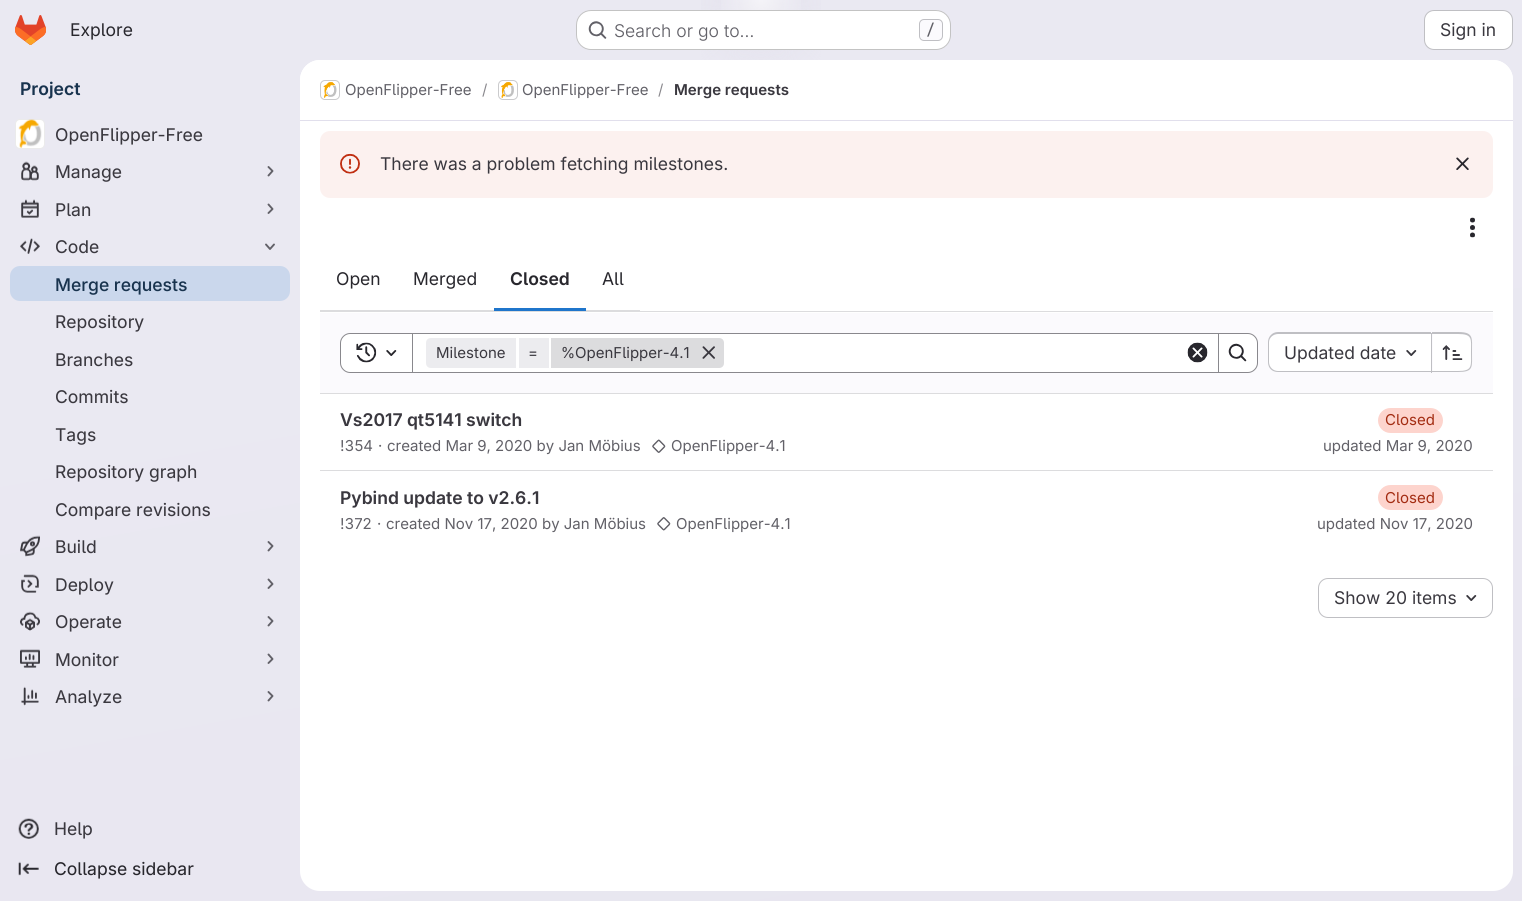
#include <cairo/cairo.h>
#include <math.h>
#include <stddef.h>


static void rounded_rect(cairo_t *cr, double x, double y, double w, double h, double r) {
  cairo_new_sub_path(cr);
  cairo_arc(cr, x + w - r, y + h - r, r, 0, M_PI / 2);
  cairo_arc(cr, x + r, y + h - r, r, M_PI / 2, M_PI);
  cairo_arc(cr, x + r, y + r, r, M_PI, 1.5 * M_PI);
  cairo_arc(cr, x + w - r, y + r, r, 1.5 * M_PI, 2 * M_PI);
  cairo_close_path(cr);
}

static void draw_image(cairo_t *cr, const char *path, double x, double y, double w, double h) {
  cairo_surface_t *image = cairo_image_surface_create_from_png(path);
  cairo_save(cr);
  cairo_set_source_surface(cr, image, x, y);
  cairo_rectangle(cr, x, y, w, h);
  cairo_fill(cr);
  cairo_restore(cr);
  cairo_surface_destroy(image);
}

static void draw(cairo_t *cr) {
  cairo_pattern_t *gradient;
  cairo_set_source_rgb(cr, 1, 1, 1);
  cairo_paint(cr);
  gradient = cairo_pattern_create_linear(861, 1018, 661, -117);
  cairo_pattern_add_color_stop_rgba(gradient, 0, 232 / 255.0, 230 / 255.0, 240 / 255.0, 1);
  cairo_pattern_add_color_stop_rgba(gradient, 0.7, 234 / 255.0, 233 / 255.0, 242 / 255.0, 1);
  cairo_set_source(cr, gradient);
  cairo_pattern_destroy(gradient);
  cairo_rectangle(cr, 0, 0, 1522, 901);
  cairo_fill(cr);
  gradient = cairo_pattern_create_radial(0, 0, 0, 0, 0, 1);
  cairo_pattern_set_matrix(gradient, &(cairo_matrix_t){1.0 / 761, 0, 0, 1.0 / 901, -1.0 * 761 / 761, -1.0 * 0 / 901});
  cairo_pattern_add_color_stop_rgba(gradient, 0, 228 / 255.0, 226 / 255.0, 237 / 255.0, 1);
  cairo_pattern_add_color_stop_rgba(gradient, 0.11, 228 / 255.0, 226 / 255.0, 237 / 255.0, 0);
  cairo_set_source(cr, gradient);
  cairo_pattern_destroy(gradient);
  cairo_rectangle(cr, 701, 0, 120, 60);
  cairo_fill(cr);
  gradient = cairo_pattern_create_radial(0, 0, 0, 0, 0, 1);
  cairo_pattern_set_matrix(gradient, &(cairo_matrix_t){1.0 / 761, 0, 0, 1.0 / 901, -1.0 * 761 / 761, -1.0 * 0 / 901});
  cairo_pattern_add_color_stop_rgba(gradient, 0, 228 / 255.0, 226 / 255.0, 236 / 255.0, 1);
  cairo_pattern_add_color_stop_rgba(gradient, 0.08, 228 / 255.0, 226 / 255.0, 236 / 255.0, 0);
  cairo_set_source(cr, gradient);
  cairo_pattern_destroy(gradient);
  cairo_rectangle(cr, 738, 2, 46, 28);
  cairo_fill(cr);
  gradient = cairo_pattern_create_radial(761, 0, 0, 761, 0, 1180);
  cairo_pattern_add_color_stop_rgba(gradient, 0, 1, 1, 1, 0.6);
  cairo_pattern_add_color_stop_rgba(gradient, 0.04, 1, 1, 1, 0);
  cairo_set_source(cr, gradient);
  cairo_pattern_destroy(gradient);
  cairo_rectangle(cr, 721, 0, 80, 10);
  cairo_fill(cr);
  draw_image(cr, "images/1.png", 15, 15, 31, 30);
  cairo_set_source_rgb(cr, 1, 1, 1);
  rounded_rect(cr, 576, 10, 375, 40, 15);
  cairo_fill(cr);
  rounded_rect(cr, 576.5, 10.5, 374, 39, 14.5);
  cairo_set_source_rgba(cr, 5 / 255.0, 5 / 255.0, 6 / 255.0, 0.24);
  cairo_set_line_width(cr, 1);
  cairo_stroke(cr);
  draw_image(cr, "images/2.png", 588, 21, 19, 18);
  cairo_set_source_rgb(cr, 251 / 255.0, 250 / 255.0, 253 / 255.0);
  rounded_rect(cr, 919.5, 19.5, 23, 21, 4.5);
  cairo_fill_preserve(cr);
  cairo_set_source_rgb(cr, 191 / 255.0, 191 / 255.0, 195 / 255.0);
  cairo_stroke(cr);
  cairo_set_source_rgb(cr, 1, 1, 1);
  rounded_rect(cr, 1424.5, 10.5, 88, 39, 9.5);
  cairo_fill_preserve(cr);
  cairo_set_source_rgb(cr, 191 / 255.0, 191 / 255.0, 195 / 255.0);
  cairo_stroke(cr);
  cairo_set_source_rgb(cr, 1, 1, 1);
  rounded_rect(cr, 15, 119, 30, 30, 5);
  cairo_fill(cr);
  draw_image(cr, "images/3.png", 18, 119, 24, 29);
  rounded_rect(cr, 15.5, 119.5, 29, 29, 4.5);
  cairo_set_source_rgba(cr, 5 / 255.0, 5 / 255.0, 6 / 255.0, 0.08);
  cairo_stroke(cr);
  draw_image(cr, "images/4.png", 21, 161, 18, 20);
  cairo_new_path(cr);
  cairo_move_to(cr, 268.5, 167);
  cairo_line_to(cr, 272.5, 171);
  cairo_line_to(cr, 268.5, 175.5);
  cairo_set_source_rgb(cr, 98 / 255.0, 97 / 255.0, 104 / 255.0);
  cairo_set_line_width(cr, 1.9);
  cairo_set_line_cap(cr, CAIRO_LINE_CAP_ROUND);
  cairo_set_line_join(cr, CAIRO_LINE_JOIN_ROUND);
  cairo_stroke(cr);
  draw_image(cr, "images/5.png", 21, 199, 18, 19);
  cairo_new_path(cr);
  cairo_move_to(cr, 268.5, 204.5);
  cairo_line_to(cr, 272.5, 209);
  cairo_line_to(cr, 268.5, 213);
  cairo_stroke(cr);
  draw_image(cr, "images/6.png", 20, 238, 20, 16);
  cairo_new_path(cr);
  cairo_move_to(cr, 274, 244.5);
  cairo_line_to(cr, 270, 249);
  cairo_line_to(cr, 266, 244.5);
  cairo_stroke(cr);
  cairo_set_source_rgb(cr, 202 / 255.0, 215 / 255.0, 236 / 255.0);
  rounded_rect(cr, 10, 266, 280, 35, 10);
  cairo_fill(cr);
  draw_image(cr, "images/7.png", 20, 535, 20, 22);
  cairo_new_path(cr);
  cairo_move_to(cr, 268.5, 542);
  cairo_line_to(cr, 272.5, 546);
  cairo_line_to(cr, 268.5, 550.5);
  cairo_set_source_rgb(cr, 98 / 255.0, 97 / 255.0, 104 / 255.0);
  cairo_stroke(cr);
  draw_image(cr, "images/8.png", 21, 574, 18, 19);
  cairo_new_path(cr);
  cairo_move_to(cr, 268.5, 579.5);
  cairo_line_to(cr, 272.5, 584);
  cairo_line_to(cr, 268.5, 588);
  cairo_stroke(cr);
  draw_image(cr, "images/9.png", 20, 611, 20, 20);
  cairo_new_path(cr);
  cairo_move_to(cr, 268.5, 617);
  cairo_line_to(cr, 272.5, 621);
  cairo_line_to(cr, 268.5, 625.5);
  cairo_stroke(cr);
  draw_image(cr, "images/10.png", 20, 649, 20, 19);
  cairo_new_path(cr);
  cairo_move_to(cr, 268.5, 654.5);
  cairo_line_to(cr, 272.5, 659);
  cairo_line_to(cr, 268.5, 663);
  cairo_stroke(cr);
  draw_image(cr, "images/11.png", 21, 686, 18, 20);
  cairo_new_path(cr);
  cairo_move_to(cr, 268.5, 692);
  cairo_line_to(cr, 272.5, 696);
  cairo_line_to(cr, 268.5, 700.5);
  cairo_stroke(cr);
  draw_image(cr, "images/12.png", 18, 818, 21, 21);
  draw_image(cr, "images/13.png", 18, 861, 21, 15);
  cairo_set_source_rgb(cr, 1, 1, 1);
  rounded_rect(cr, 300, 60, 1213, 831, 20);
  cairo_fill(cr);
  cairo_new_path(cr);
  cairo_move_to(cr, 320, 60);
  cairo_line_to(cr, 1493, 60);
  cairo_curve_to(cr, 1504, 60, 1513, 69, 1513, 80);
  cairo_line_to(cr, 1513, 121);
  cairo_line_to(cr, 300, 121);
  cairo_line_to(cr, 300, 80);
  cairo_curve_to(cr, 300, 69, 309, 60, 320, 60);
  cairo_close_path(cr);
  cairo_fill(cr);
  cairo_set_source_rgb(cr, 225 / 255.0, 223 / 255.0, 236 / 255.0);
  cairo_rectangle(cr, 300, 120, 1213, 1);
  cairo_fill(cr);
  rounded_rect(cr, 320.5, 80.5, 19, 19, 4.5);
  cairo_set_source_rgb(cr, 220 / 255.0, 220 / 255.0, 222 / 255.0);
  cairo_set_line_width(cr, 1);
  cairo_set_line_cap(cr, CAIRO_LINE_CAP_BUTT);
  cairo_set_line_join(cr, CAIRO_LINE_JOIN_MITER);
  cairo_stroke(cr);
  draw_image(cr, "images/14.png", 323, 82, 14, 16);
  rounded_rect(cr, 320.5, 80.5, 19, 19, 4.5);
  cairo_set_source_rgba(cr, 5 / 255.0, 5 / 255.0, 6 / 255.0, 0.08);
  cairo_stroke(cr);
  rounded_rect(cr, 498.5, 80.5, 19, 19, 4.5);
  cairo_set_source_rgb(cr, 220 / 255.0, 220 / 255.0, 222 / 255.0);
  cairo_stroke(cr);
  draw_image(cr, "images/15.png", 501, 82, 13, 16);
  rounded_rect(cr, 498.5, 80.5, 19, 19, 4.5);
  cairo_set_source_rgba(cr, 5 / 255.0, 5 / 255.0, 6 / 255.0, 0.08);
  cairo_stroke(cr);
  cairo_set_source_rgb(cr, 252 / 255.0, 241 / 255.0, 239 / 255.0);
  rounded_rect(cr, 320, 131, 1173, 67, 10);
  cairo_fill(cr);
  draw_image(cr, "images/16.png", 340, 153, 20, 21);
  draw_image(cr, "images/17.png", 1456, 157, 13, 13);
  cairo_set_source_rgb(cr, 220 / 255.0, 220 / 255.0, 222 / 255.0);
  cairo_rectangle(cr, 320, 311, 1173, 1);
  cairo_fill(cr);
  draw_image(cr, "images/18.png", 1470, 217, 5, 21);
  cairo_rectangle(cr, 320, 310, 320, 1);
  cairo_fill(cr);
  cairo_set_source_rgb(cr, 31 / 255.0, 117 / 255.0, 203 / 255.0);
  cairo_rectangle(cr, 494, 308, 92, 3);
  cairo_fill(cr);
  cairo_set_source_rgb(cr, 251 / 255.0, 250 / 255.0, 253 / 255.0);
  cairo_rectangle(cr, 320, 313, 1173, 80);
  cairo_fill(cr);
  cairo_set_source_rgb(cr, 220 / 255.0, 220 / 255.0, 222 / 255.0);
  cairo_rectangle(cr, 320, 393, 1173, 1);
  cairo_fill(cr);
  cairo_set_source_rgb(cr, 1, 1, 1);
  cairo_rectangle(cr, 413, 334, 805, 38);
  cairo_fill(cr);
  cairo_rectangle(cr, 411.5, 333.5, 807, 39);
  cairo_set_source_rgb(cr, 137 / 255.0, 136 / 255.0, 141 / 255.0);
  cairo_stroke(cr);
  cairo_set_source_rgb(cr, 1, 1, 1);
  cairo_new_path(cr);
  cairo_move_to(cr, 350, 333.5);
  cairo_line_to(cr, 412.5, 333.5);
  cairo_line_to(cr, 412.5, 372.5);
  cairo_line_to(cr, 350, 372.5);
  cairo_curve_to(cr, 345, 372.5, 340.5, 368, 340.5, 363);
  cairo_line_to(cr, 340.5, 343);
  cairo_curve_to(cr, 340.5, 338, 345, 333.5, 350, 333.5);
  cairo_close_path(cr);
  cairo_fill_preserve(cr);
  cairo_set_source_rgb(cr, 137 / 255.0, 136 / 255.0, 141 / 255.0);
  cairo_stroke(cr);
  draw_image(cr, "images/19.png", 356, 342, 21, 21);
  draw_image(cr, "images/20.png", 386, 350, 11, 6);
  cairo_set_source_rgb(cr, 236 / 255.0, 236 / 255.0, 239 / 255.0);
  cairo_new_path(cr);
  cairo_move_to(cr, 431, 338);
  cairo_line_to(cr, 516, 338);
  cairo_line_to(cr, 516, 368);
  cairo_line_to(cr, 431, 368);
  cairo_curve_to(cr, 428, 368, 426, 366, 426, 363);
  cairo_line_to(cr, 426, 343);
  cairo_curve_to(cr, 426, 340, 428, 338, 431, 338);
  cairo_close_path(cr);
  cairo_fill(cr);
  cairo_rectangle(cr, 519, 338, 30, 30);
  cairo_fill(cr);
  cairo_set_source_rgb(cr, 220 / 255.0, 220 / 255.0, 222 / 255.0);
  cairo_new_path(cr);
  cairo_move_to(cr, 551, 338);
  cairo_line_to(cr, 719, 338);
  cairo_curve_to(cr, 722, 338, 724, 340, 724, 343);
  cairo_line_to(cr, 724, 363);
  cairo_curve_to(cr, 724, 366, 722, 368, 719, 368);
  cairo_line_to(cr, 551, 368);
  cairo_close_path(cr);
  cairo_fill(cr);
  draw_image(cr, "images/21.png", 702, 346, 13, 13);
  draw_image(cr, "images/22.png", 1187, 342, 21, 21);
  cairo_set_source_rgb(cr, 1, 1, 1);
  cairo_new_path(cr);
  cairo_move_to(cr, 1218.5, 333.5);
  cairo_line_to(cr, 1248, 333.5);
  cairo_curve_to(cr, 1253, 333.5, 1257.5, 338, 1257.5, 343);
  cairo_line_to(cr, 1257.5, 363);
  cairo_curve_to(cr, 1257.5, 368, 1253, 372.5, 1248, 372.5);
  cairo_line_to(cr, 1218.5, 372.5);
  cairo_close_path(cr);
  cairo_fill_preserve(cr);
  cairo_set_source_rgb(cr, 137 / 255.0, 136 / 255.0, 141 / 255.0);
  cairo_stroke(cr);
  draw_image(cr, "images/23.png", 1228, 343, 19, 19);
  cairo_set_source_rgb(cr, 1, 1, 1);
  cairo_new_path(cr);
  cairo_move_to(cr, 1278, 334);
  cairo_line_to(cr, 1431, 334);
  cairo_line_to(cr, 1431, 371);
  cairo_line_to(cr, 1278, 371);
  cairo_curve_to(cr, 1273, 371, 1269, 367, 1269, 362);
  cairo_line_to(cr, 1269, 343);
  cairo_curve_to(cr, 1269, 338, 1273, 334, 1278, 334);
  cairo_close_path(cr);
  cairo_fill(cr);
  cairo_set_source_rgb(cr, 191 / 255.0, 191 / 255.0, 195 / 255.0);
  cairo_set_fill_rule(cr, CAIRO_FILL_RULE_EVEN_ODD);
  cairo_new_path(cr);
  cairo_move_to(cr, 1278, 332);
  cairo_line_to(cr, 1431, 332);
  cairo_line_to(cr, 1431, 372);
  cairo_line_to(cr, 1278, 372);
  cairo_curve_to(cr, 1272, 372, 1268, 368, 1268, 362);
  cairo_line_to(cr, 1268, 342);
  cairo_curve_to(cr, 1268, 337, 1272, 332, 1278, 332);
  cairo_close_path(cr);
  cairo_move_to(cr, 1278, 334);
  cairo_line_to(cr, 1431, 334);
  cairo_line_to(cr, 1431, 371);
  cairo_line_to(cr, 1278, 371);
  cairo_curve_to(cr, 1273, 371, 1269, 367, 1269, 362);
  cairo_line_to(cr, 1269, 342);
  cairo_curve_to(cr, 1269, 338, 1273, 334, 1278, 334);
  cairo_close_path(cr);
  cairo_fill(cr);
  draw_image(cr, "images/24.png", 1406, 350, 11, 6);
  cairo_set_source_rgb(cr, 1, 1, 1);
  cairo_new_path(cr);
  cairo_move_to(cr, 1433, 334);
  cairo_line_to(cr, 1462, 334);
  cairo_curve_to(cr, 1467, 334, 1471, 338, 1471, 343);
  cairo_line_to(cr, 1471, 362);
  cairo_curve_to(cr, 1471, 367, 1467, 371, 1462, 371);
  cairo_line_to(cr, 1433, 371);
  cairo_close_path(cr);
  cairo_fill(cr);
  cairo_set_source_rgb(cr, 191 / 255.0, 191 / 255.0, 195 / 255.0);
  cairo_new_path(cr);
  cairo_move_to(cr, 1432, 332);
  cairo_line_to(cr, 1458, 332);
  cairo_curve_to(cr, 1474, 332, 1472, 338, 1472, 352);
  cairo_curve_to(cr, 1472, 367, 1474, 372, 1458, 372);
  cairo_line_to(cr, 1432, 372);
  cairo_close_path(cr);
  cairo_move_to(cr, 1432, 334);
  cairo_line_to(cr, 1458, 334);
  cairo_curve_to(cr, 1473, 334, 1471, 339, 1471, 352);
  cairo_curve_to(cr, 1471, 366, 1473, 371, 1458, 371);
  cairo_line_to(cr, 1432, 371);
  cairo_close_path(cr);
  cairo_fill(cr);
  cairo_rectangle(cr, 1431, 333, 1, 40);
  cairo_fill(cr);
  draw_image(cr, "images/25.png", 1442, 345, 21, 15);
  cairo_set_source_rgb(cr, 220 / 255.0, 220 / 255.0, 222 / 255.0);
  cairo_rectangle(cr, 320, 470, 1173, 1);
  cairo_fill(cr);
  draw_image(cr, "images/26.png", 652, 439, 14, 14);
  cairo_set_source_rgb(cr, 253 / 255.0, 212 / 255.0, 205 / 255.0);
  rounded_rect(cr, 1378, 408, 65, 25, 12.5);
  cairo_fill(cr);
  draw_image(cr, "images/27.png", 657, 517, 14, 14);
  rounded_rect(cr, 1378, 485, 65, 25, 12.5);
  cairo_fill(cr);
  rounded_rect(cr, 1318.5, 578.5, 174, 39, 9.5);
  cairo_set_source_rgb(cr, 191 / 255.0, 191 / 255.0, 195 / 255.0);
  cairo_stroke(cr);
  draw_image(cr, "images/24.png", 1466, 595, 11, 6);
  cairo_select_font_face(cr, "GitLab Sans", CAIRO_FONT_SLANT_NORMAL, CAIRO_FONT_WEIGHT_NORMAL);
  cairo_set_font_size(cr, 17.5);
  cairo_set_source_rgb(cr, 40 / 255.0, 39 / 255.0, 45 / 255.0);
  cairo_move_to(cr, 70, 36);
  cairo_show_text(cr, "Explore");
  cairo_select_font_face(cr, "GitLab Sans Light", CAIRO_FONT_SLANT_NORMAL, CAIRO_FONT_WEIGHT_NORMAL);
  cairo_set_source_rgb(cr, 98 / 255.0, 97 / 255.0, 104 / 255.0);
  cairo_move_to(cr, 614, 37);
  cairo_show_text(cr, "Search or go to…");
  cairo_select_font_face(cr, "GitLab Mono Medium", CAIRO_FONT_SLANT_NORMAL, CAIRO_FONT_WEIGHT_NORMAL);
  cairo_set_font_size(cr, 15);
  cairo_move_to(cr, 926, 35);
  cairo_show_text(cr, "/");
  cairo_select_font_face(cr, "GitLab Sans", CAIRO_FONT_SLANT_NORMAL, CAIRO_FONT_WEIGHT_NORMAL);
  cairo_set_font_size(cr, 17.5);
  cairo_set_source_rgb(cr, 58 / 255.0, 56 / 255.0, 63 / 255.0);
  cairo_move_to(cr, 1440, 36);
  cairo_show_text(cr, "Sign in");
  cairo_select_font_face(cr, "GitLab Sans SemiBold", CAIRO_FONT_SLANT_NORMAL, CAIRO_FONT_WEIGHT_NORMAL);
  cairo_set_source_rgb(cr, 24 / 255.0, 51 / 255.0, 78 / 255.0);
  cairo_move_to(cr, 20, 95);
  cairo_show_text(cr, "Project");
  cairo_select_font_face(cr, "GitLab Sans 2", CAIRO_FONT_SLANT_NORMAL, CAIRO_FONT_WEIGHT_NORMAL);
  cairo_set_source_rgb(cr, 58 / 255.0, 56 / 255.0, 63 / 255.0);
  cairo_move_to(cr, 55, 141);
  cairo_show_text(cr, "OpenFlipper-Free");
  cairo_move_to(cr, 55, 178);
  cairo_show_text(cr, "Manage");
  cairo_move_to(cr, 55, 216);
  cairo_show_text(cr, "Plan");
  cairo_move_to(cr, 55, 253);
  cairo_show_text(cr, "Code");
  cairo_select_font_face(cr, "GitLab Sans Medium", CAIRO_FONT_SLANT_NORMAL, CAIRO_FONT_WEIGHT_NORMAL);
  cairo_set_source_rgb(cr, 24 / 255.0, 51 / 255.0, 78 / 255.0);
  cairo_move_to(cr, 55, 291);
  cairo_show_text(cr, "Merge requests");
  cairo_select_font_face(cr, "GitLab Sans 2", CAIRO_FONT_SLANT_NORMAL, CAIRO_FONT_WEIGHT_NORMAL);
  cairo_set_source_rgb(cr, 58 / 255.0, 56 / 255.0, 63 / 255.0);
  cairo_move_to(cr, 55, 328);
  cairo_show_text(cr, "Repository");
  cairo_move_to(cr, 55, 366);
  cairo_show_text(cr, "Branches");
  cairo_move_to(cr, 55, 403);
  cairo_show_text(cr, "Commits");
  cairo_move_to(cr, 55, 441);
  cairo_show_text(cr, "Tags");
  cairo_move_to(cr, 55, 478);
  cairo_show_text(cr, "Repository graph");
  cairo_move_to(cr, 55, 516);
  cairo_show_text(cr, "Compare revisions");
  cairo_move_to(cr, 55, 553);
  cairo_show_text(cr, "Build");
  cairo_move_to(cr, 55, 591);
  cairo_show_text(cr, "Deploy");
  cairo_move_to(cr, 55, 628);
  cairo_show_text(cr, "Operate");
  cairo_move_to(cr, 55, 666);
  cairo_show_text(cr, "Monitor");
  cairo_move_to(cr, 55, 703);
  cairo_show_text(cr, "Analyze");
  cairo_move_to(cr, 54, 835);
  cairo_show_text(cr, "Help");
  cairo_set_source_rgb(cr, 40 / 255.0, 39 / 255.0, 45 / 255.0);
  cairo_move_to(cr, 54, 875);
  cairo_show_text(cr, "Collapse sidebar");
  cairo_select_font_face(cr, "GitLab Sans", CAIRO_FONT_SLANT_NORMAL, CAIRO_FONT_WEIGHT_NORMAL);
  cairo_set_font_size(cr, 15);
  cairo_set_source_rgb(cr, 98 / 255.0, 97 / 255.0, 104 / 255.0);
  cairo_move_to(cr, 345, 95);
  cairo_show_text(cr, "OpenFlipper-Free");
  cairo_set_source_rgb(cr, 137 / 255.0, 136 / 255.0, 141 / 255.0);
  cairo_move_to(cr, 482, 95);
  cairo_show_text(cr, "/");
  cairo_set_source_rgb(cr, 98 / 255.0, 97 / 255.0, 104 / 255.0);
  cairo_move_to(cr, 522, 95);
  cairo_show_text(cr, "OpenFlipper-Free");
  cairo_set_source_rgb(cr, 137 / 255.0, 136 / 255.0, 141 / 255.0);
  cairo_move_to(cr, 658, 95);
  cairo_show_text(cr, "/");
  cairo_select_font_face(cr, "GitLab Sans SemiBold", CAIRO_FONT_SLANT_NORMAL, CAIRO_FONT_WEIGHT_NORMAL);
  cairo_set_source_rgb(cr, 58 / 255.0, 56 / 255.0, 63 / 255.0);
  cairo_move_to(cr, 674, 95);
  cairo_show_text(cr, "Merge requests");
  cairo_select_font_face(cr, "GitLab Sans", CAIRO_FONT_SLANT_NORMAL, CAIRO_FONT_WEIGHT_NORMAL);
  cairo_set_font_size(cr, 17.5);
  cairo_move_to(cr, 380, 170);
  cairo_show_text(cr, "There was a problem fetching milestones.");
  cairo_set_source_rgb(cr, 40 / 255.0, 39 / 255.0, 45 / 255.0);
  cairo_move_to(cr, 336, 285);
  cairo_show_text(cr, "Open");
  cairo_move_to(cr, 413, 285);
  cairo_show_text(cr, "Merged");
  cairo_select_font_face(cr, "GitLab Sans SemiBold", CAIRO_FONT_SLANT_NORMAL, CAIRO_FONT_WEIGHT_NORMAL);
  cairo_move_to(cr, 510, 285);
  cairo_show_text(cr, "Closed");
  cairo_select_font_face(cr, "GitLab Sans", CAIRO_FONT_SLANT_NORMAL, CAIRO_FONT_WEIGHT_NORMAL);
  cairo_move_to(cr, 602, 285);
  cairo_show_text(cr, "All");
  cairo_set_font_size(cr, 15);
  cairo_set_source_rgb(cr, 58 / 255.0, 56 / 255.0, 63 / 255.0);
  cairo_move_to(cr, 436, 358);
  cairo_show_text(cr, "Milestone");
  cairo_move_to(cr, 528, 358);
  cairo_show_text(cr, "=");
  cairo_move_to(cr, 561, 358);
  cairo_show_text(cr, "%OpenFlipper-4.1");
  cairo_set_font_size(cr, 17.5);
  cairo_move_to(cr, 1284, 359);
  cairo_show_text(cr, "Updated date");
  cairo_select_font_face(cr, "GitLab Sans SemiBold", CAIRO_FONT_SLANT_NORMAL, CAIRO_FONT_WEIGHT_NORMAL);
  cairo_move_to(cr, 340, 426);
  cairo_show_text(cr, "Vs2017 qt5141 switch");
  cairo_select_font_face(cr, "GitLab Sans", CAIRO_FONT_SLANT_NORMAL, CAIRO_FONT_WEIGHT_NORMAL);
  cairo_set_font_size(cr, 15);
  cairo_set_source_rgb(cr, 98 / 255.0, 97 / 255.0, 104 / 255.0);
  cairo_move_to(cr, 340, 451);
  cairo_show_text(cr, "!354");
  cairo_move_to(cr, 378, 451);
  cairo_show_text(cr, "·");
  cairo_move_to(cr, 387, 451);
  cairo_show_text(cr, "created Mar 9, 2020 by Jan Möbius");
  cairo_move_to(cr, 671, 451);
  cairo_show_text(cr, "OpenFlipper-4.1");
  cairo_set_source_rgb(cr, 163 / 255.0, 44 / 255.0, 18 / 255.0);
  cairo_move_to(cr, 1385, 425);
  cairo_show_text(cr, "Closed");
  cairo_set_source_rgb(cr, 98 / 255.0, 97 / 255.0, 104 / 255.0);
  cairo_move_to(cr, 1323, 451);
  cairo_show_text(cr, "updated Mar 9, 2020");
  cairo_select_font_face(cr, "GitLab Sans SemiBold", CAIRO_FONT_SLANT_NORMAL, CAIRO_FONT_WEIGHT_NORMAL);
  cairo_set_font_size(cr, 17.5);
  cairo_set_source_rgb(cr, 58 / 255.0, 56 / 255.0, 63 / 255.0);
  cairo_move_to(cr, 340, 504);
  cairo_show_text(cr, "Pybind update to v2.6.1");
  cairo_select_font_face(cr, "GitLab Sans", CAIRO_FONT_SLANT_NORMAL, CAIRO_FONT_WEIGHT_NORMAL);
  cairo_set_font_size(cr, 15);
  cairo_set_source_rgb(cr, 98 / 255.0, 97 / 255.0, 104 / 255.0);
  cairo_move_to(cr, 340, 529);
  cairo_show_text(cr, "!372");
  cairo_move_to(cr, 377, 529);
  cairo_show_text(cr, "·");
  cairo_move_to(cr, 386, 529);
  cairo_show_text(cr, "created Nov 17, 2020 by Jan Möbius");
  cairo_move_to(cr, 676, 529);
  cairo_show_text(cr, "OpenFlipper-4.1");
  cairo_set_source_rgb(cr, 163 / 255.0, 44 / 255.0, 18 / 255.0);
  cairo_move_to(cr, 1385, 503);
  cairo_show_text(cr, "Closed");
  cairo_set_source_rgb(cr, 98 / 255.0, 97 / 255.0, 104 / 255.0);
  cairo_move_to(cr, 1317, 529);
  cairo_show_text(cr, "updated Nov 17, 2020");
  cairo_set_font_size(cr, 17.5);
  cairo_set_source_rgb(cr, 58 / 255.0, 56 / 255.0, 63 / 255.0);
  cairo_move_to(cr, 1334, 604);
  cairo_show_text(cr, "Show 20 items");
}

int main(void) {
  cairo_surface_t *surface = cairo_image_surface_create(CAIRO_FORMAT_RGB24, 1522, 901);
  cairo_t *cr = cairo_create(surface);
  cairo_font_options_t *options = cairo_font_options_create();
  cairo_font_options_set_hint_metrics(options, CAIRO_HINT_METRICS_OFF);
  cairo_font_options_set_hint_style(options, CAIRO_HINT_STYLE_NONE);
  cairo_set_font_options(cr, options);
  cairo_set_miter_limit(cr, 4);
  draw(cr);
  cairo_surface_write_to_png(surface, "out.png");
  cairo_font_options_destroy(options);
  cairo_destroy(cr);
  cairo_surface_destroy(surface);
  return 0;
}
